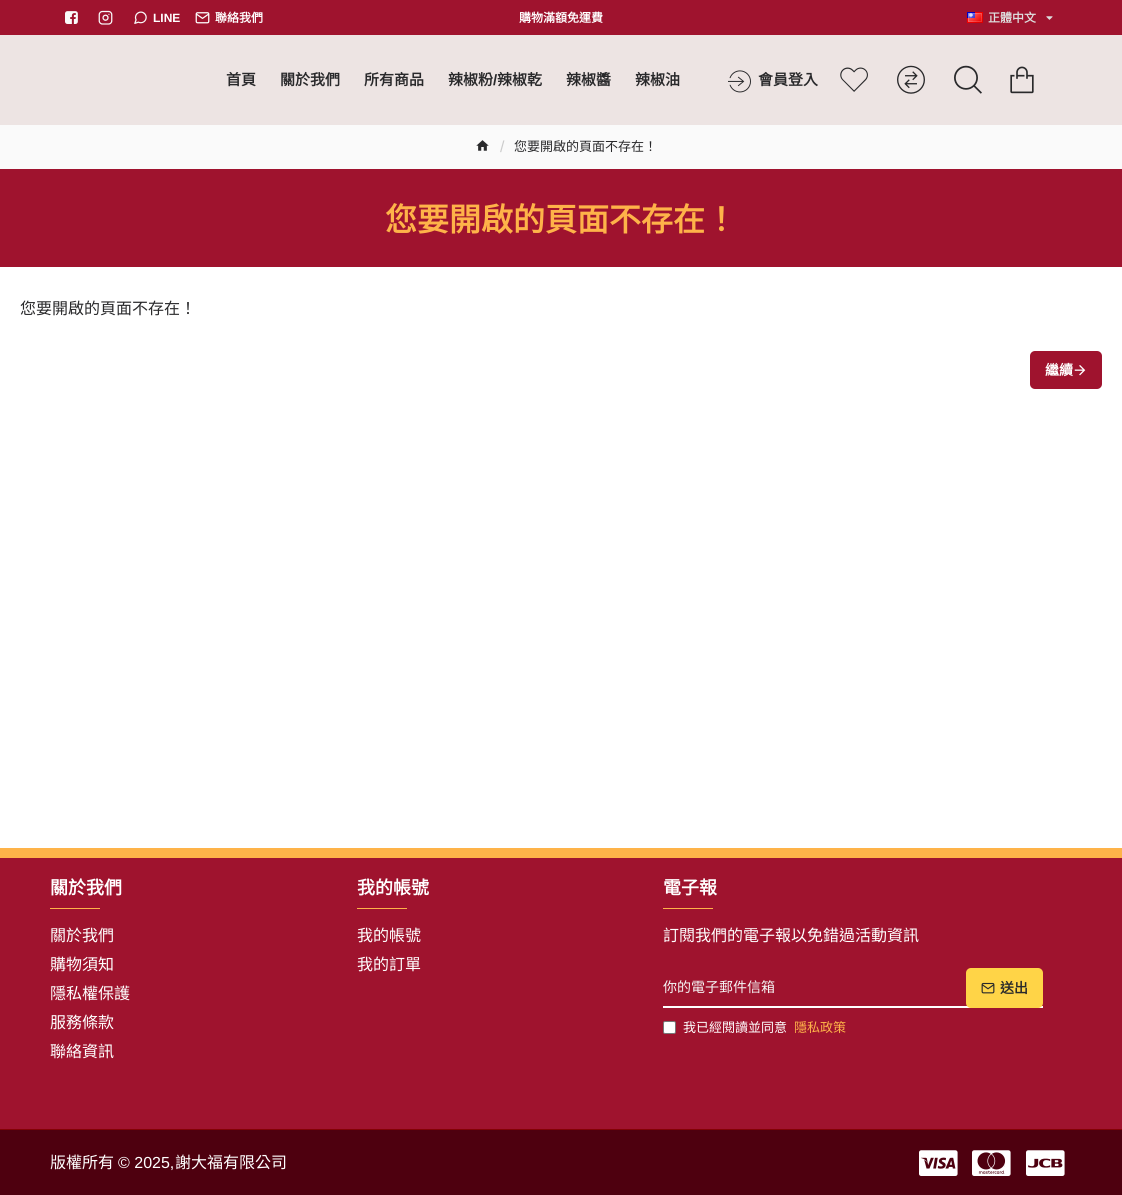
#include <cairo/cairo.h>
#include <math.h>
#include <stddef.h>


static void rounded_rect(cairo_t *cr, double x, double y, double w, double h, double r) {
  cairo_new_sub_path(cr);
  cairo_arc(cr, x + w - r, y + h - r, r, 0, M_PI / 2);
  cairo_arc(cr, x + r, y + h - r, r, M_PI / 2, M_PI);
  cairo_arc(cr, x + r, y + r, r, M_PI, 1.5 * M_PI);
  cairo_arc(cr, x + w - r, y + r, r, 1.5 * M_PI, 2 * M_PI);
  cairo_close_path(cr);
}

static void draw_image(cairo_t *cr, const char *path, double x, double y, double w, double h) {
  cairo_surface_t *image = cairo_image_surface_create_from_png(path);
  cairo_save(cr);
  cairo_set_source_surface(cr, image, x, y);
  cairo_rectangle(cr, x, y, w, h);
  cairo_fill(cr);
  cairo_restore(cr);
  cairo_surface_destroy(image);
}

static void draw(cairo_t *cr) {
  cairo_set_source_rgb(cr, 1, 1, 1);
  cairo_paint(cr);
  cairo_set_source_rgb(cr, 237 / 255.0, 228 / 255.0, 227 / 255.0);
  cairo_rectangle(cr, 0, 35, 1122, 90);
  cairo_fill(cr);
  cairo_set_source_rgb(cr, 159 / 255.0, 19 / 255.0, 46 / 255.0);
  cairo_rectangle(cr, 0, 0, 1122, 35);
  cairo_fill(cr);
  draw_image(cr, "images/1.png", 65, 11, 13, 13);
  draw_image(cr, "images/2.png", 98, 10, 15, 15);
  draw_image(cr, "images/3.png", 134, 11, 13, 13);
  draw_image(cr, "images/4.png", 195, 12, 15, 12);
  draw_image(cr, "images/5.png", 967, 12, 16, 11);
  draw_image(cr, "images/6.png", 1046, 16, 7, 4);
  draw_image(cr, "images/7.png", 728, 70, 23, 23);
  draw_image(cr, "images/8.png", 840, 67, 28, 25);
  draw_image(cr, "images/9.png", 897, 65, 28, 29);
  draw_image(cr, "images/10.png", 954, 65, 28, 29);
  draw_image(cr, "images/11.png", 1010, 66, 24, 28);
  cairo_set_source_rgb(cr, 250 / 255.0, 250 / 255.0, 250 / 255.0);
  cairo_rectangle(cr, 0, 125, 1122, 44);
  cairo_fill(cr);
  draw_image(cr, "images/12.png", 476, 140, 13, 11);
  cairo_set_source_rgb(cr, 159 / 255.0, 19 / 255.0, 46 / 255.0);
  cairo_rectangle(cr, 0, 169, 1122, 98);
  cairo_fill(cr);
  rounded_rect(cr, 1030, 351, 72, 38, 5);
  cairo_fill(cr);
  draw_image(cr, "images/13.png", 1074, 365, 12, 11);
  cairo_set_source_rgb(cr, 254 / 255.0, 179 / 255.0, 73 / 255.0);
  cairo_rectangle(cr, 0, 848, 1122, 10);
  cairo_fill(cr);
  cairo_set_source_rgb(cr, 159 / 255.0, 19 / 255.0, 46 / 255.0);
  cairo_rectangle(cr, 0, 858, 1122, 271);
  cairo_fill(cr);
  cairo_set_source_rgb(cr, 254 / 255.0, 179 / 255.0, 73 / 255.0);
  cairo_rectangle(cr, 50, 908, 50, 1);
  cairo_fill(cr);
  cairo_rectangle(cr, 357, 908, 50, 1);
  cairo_fill(cr);
  cairo_rectangle(cr, 663, 908, 50, 1);
  cairo_fill(cr);
  cairo_set_source_rgb(cr, 1, 1, 1);
  cairo_rectangle(cr, 663, 1006, 380, 2);
  cairo_fill(cr);
  cairo_set_source_rgb(cr, 1, 212 / 255.0, 71 / 255.0);
  rounded_rect(cr, 966, 968, 77, 40, 5);
  cairo_fill(cr);
  draw_image(cr, "images/14.png", 981, 982, 14, 12);
  cairo_set_source_rgb(cr, 1, 1, 1);
  rounded_rect(cr, 663.5, 1021.5, 12, 12, 1.5);
  cairo_fill_preserve(cr);
  cairo_set_source_rgb(cr, 118 / 255.0, 118 / 255.0, 118 / 255.0);
  cairo_set_line_width(cr, 1);
  cairo_stroke(cr);
  cairo_set_source_rgb(cr, 78 / 255.0, 0, 15 / 255.0);
  cairo_rectangle(cr, 0, 1130, 1122, 65);
  cairo_fill(cr);
  cairo_set_source_rgb(cr, 132 / 255.0, 1 / 255.0, 5 / 255.0);
  cairo_rectangle(cr, 0, 1129, 1122, 1);
  cairo_fill(cr);
  draw_image(cr, "images/15.png", 919, 1150, 39, 26);
  draw_image(cr, "images/16.png", 972, 1150, 39, 26);
  draw_image(cr, "images/17.png", 1026, 1150, 39, 26);
  cairo_select_font_face(cr, "Liberation Sans", CAIRO_FONT_SLANT_NORMAL, CAIRO_FONT_WEIGHT_BOLD);
  cairo_set_font_size(cr, 12);
  cairo_set_source_rgb(cr, 1, 1, 1);
  cairo_move_to(cr, 153, 22);
  cairo_show_text(cr, "LINE");
  cairo_select_font_face(cr, "Noto Sans CJK TC", CAIRO_FONT_SLANT_NORMAL, CAIRO_FONT_WEIGHT_BOLD);
  cairo_move_to(cr, 215, 22);
  cairo_show_text(cr, "聯絡我們");
  cairo_move_to(cr, 519, 22);
  cairo_show_text(cr, "購物滿額免運費");
  cairo_set_source_rgb(cr, 221 / 255.0, 221 / 255.0, 221 / 255.0);
  cairo_move_to(cr, 988, 22);
  cairo_show_text(cr, "正體中文");
  cairo_set_font_size(cr, 15);
  cairo_set_source_rgb(cr, 41 / 255.0, 41 / 255.0, 43 / 255.0);
  cairo_move_to(cr, 226, 85);
  cairo_show_text(cr, "首頁");
  cairo_move_to(cr, 280, 85);
  cairo_show_text(cr, "關於我們");
  cairo_move_to(cr, 364, 85);
  cairo_show_text(cr, "所有商品");
  cairo_move_to(cr, 448, 85);
  cairo_show_text(cr, "辣椒粉");
  cairo_select_font_face(cr, "Liberation Sans", CAIRO_FONT_SLANT_NORMAL, CAIRO_FONT_WEIGHT_BOLD);
  cairo_move_to(cr, 493, 85);
  cairo_show_text(cr, "/");
  cairo_select_font_face(cr, "Noto Sans CJK TC", CAIRO_FONT_SLANT_NORMAL, CAIRO_FONT_WEIGHT_BOLD);
  cairo_move_to(cr, 497, 85);
  cairo_show_text(cr, "辣椒乾");
  cairo_move_to(cr, 566, 85);
  cairo_show_text(cr, "辣椒醬");
  cairo_move_to(cr, 635, 85);
  cairo_show_text(cr, "辣椒油");
  cairo_move_to(cr, 758, 85);
  cairo_show_text(cr, "會員登入");
  cairo_select_font_face(cr, "Liberation Sans", CAIRO_FONT_SLANT_NORMAL, CAIRO_FONT_WEIGHT_NORMAL);
  cairo_set_font_size(cr, 16);
  cairo_set_source_rgb(cr, 204 / 255.0, 204 / 255.0, 204 / 255.0);
  cairo_move_to(cr, 500, 152);
  cairo_show_text(cr, "/");
  cairo_select_font_face(cr, "Noto Sans CJK TC", CAIRO_FONT_SLANT_NORMAL, CAIRO_FONT_WEIGHT_NORMAL);
  cairo_set_font_size(cr, 13);
  cairo_set_source_rgb(cr, 41 / 255.0, 41 / 255.0, 43 / 255.0);
  cairo_move_to(cr, 514, 151);
  cairo_show_text(cr, "您要開啟的頁面不存在！");
  cairo_select_font_face(cr, "Noto Sans CJK TC", CAIRO_FONT_SLANT_NORMAL, CAIRO_FONT_WEIGHT_BOLD);
  cairo_set_font_size(cr, 32);
  cairo_set_source_rgb(cr, 254 / 255.0, 179 / 255.0, 73 / 255.0);
  cairo_move_to(cr, 385, 231);
  cairo_show_text(cr, "您要開啟的頁面不存在！");
  cairo_select_font_face(cr, "Noto Sans CJK TC", CAIRO_FONT_SLANT_NORMAL, CAIRO_FONT_WEIGHT_NORMAL);
  cairo_set_font_size(cr, 16);
  cairo_set_source_rgb(cr, 41 / 255.0, 41 / 255.0, 43 / 255.0);
  cairo_move_to(cr, 20, 314);
  cairo_show_text(cr, "您要開啟的頁面不存在！");
  cairo_select_font_face(cr, "Noto Sans CJK TC", CAIRO_FONT_SLANT_NORMAL, CAIRO_FONT_WEIGHT_BOLD);
  cairo_set_font_size(cr, 14);
  cairo_set_source_rgb(cr, 1, 1, 1);
  cairo_move_to(cr, 1045, 375);
  cairo_show_text(cr, "繼續");
  cairo_set_font_size(cr, 18);
  cairo_move_to(cr, 50, 894);
  cairo_show_text(cr, "關於我們");
  cairo_select_font_face(cr, "Noto Sans CJK TC", CAIRO_FONT_SLANT_NORMAL, CAIRO_FONT_WEIGHT_NORMAL);
  cairo_set_font_size(cr, 16);
  cairo_move_to(cr, 50, 941);
  cairo_show_text(cr, "關於我們");
  cairo_move_to(cr, 50, 970);
  cairo_show_text(cr, "購物須知");
  cairo_move_to(cr, 50, 999);
  cairo_show_text(cr, "隱私權保護");
  cairo_move_to(cr, 50, 1028);
  cairo_show_text(cr, "服務條款");
  cairo_move_to(cr, 50, 1057);
  cairo_show_text(cr, "聯絡資訊");
  cairo_select_font_face(cr, "Noto Sans CJK TC", CAIRO_FONT_SLANT_NORMAL, CAIRO_FONT_WEIGHT_BOLD);
  cairo_set_font_size(cr, 18);
  cairo_move_to(cr, 357, 894);
  cairo_show_text(cr, "我的帳號");
  cairo_select_font_face(cr, "Noto Sans CJK TC", CAIRO_FONT_SLANT_NORMAL, CAIRO_FONT_WEIGHT_NORMAL);
  cairo_set_font_size(cr, 16);
  cairo_move_to(cr, 357, 941);
  cairo_show_text(cr, "我的帳號");
  cairo_move_to(cr, 357, 970);
  cairo_show_text(cr, "我的訂單");
  cairo_select_font_face(cr, "Noto Sans CJK TC", CAIRO_FONT_SLANT_NORMAL, CAIRO_FONT_WEIGHT_BOLD);
  cairo_set_font_size(cr, 18);
  cairo_move_to(cr, 663, 894);
  cairo_show_text(cr, "電子報");
  cairo_select_font_face(cr, "Noto Sans CJK TC", CAIRO_FONT_SLANT_NORMAL, CAIRO_FONT_WEIGHT_NORMAL);
  cairo_set_font_size(cr, 16);
  cairo_move_to(cr, 663, 941);
  cairo_show_text(cr, "訂閱我們的電子報以免錯過活動資訊");
  cairo_set_font_size(cr, 14);
  cairo_set_source_rgb(cr, 245 / 255.0, 245 / 255.0, 245 / 255.0);
  cairo_move_to(cr, 663, 992);
  cairo_show_text(cr, "你的電子郵件信箱");
  cairo_select_font_face(cr, "Noto Sans CJK TC", CAIRO_FONT_SLANT_NORMAL, CAIRO_FONT_WEIGHT_BOLD);
  cairo_set_source_rgb(cr, 41 / 255.0, 41 / 255.0, 43 / 255.0);
  cairo_move_to(cr, 1000, 993);
  cairo_show_text(cr, "送出");
  cairo_select_font_face(cr, "Noto Sans CJK TC", CAIRO_FONT_SLANT_NORMAL, CAIRO_FONT_WEIGHT_NORMAL);
  cairo_set_font_size(cr, 13);
  cairo_set_source_rgb(cr, 1, 1, 1);
  cairo_move_to(cr, 683, 1032);
  cairo_show_text(cr, "我已經閱讀並同意");
  cairo_set_source_rgb(cr, 254 / 255.0, 179 / 255.0, 73 / 255.0);
  cairo_move_to(cr, 794, 1032);
  cairo_show_text(cr, "隱私政策");
  cairo_set_font_size(cr, 16);
  cairo_set_source_rgb(cr, 1, 1, 1);
  cairo_move_to(cr, 50, 1168);
  cairo_show_text(cr, "版權所有");
  cairo_select_font_face(cr, "Liberation Sans", CAIRO_FONT_SLANT_NORMAL, CAIRO_FONT_WEIGHT_NORMAL);
  cairo_move_to(cr, 118, 1168);
  cairo_show_text(cr, "© 2025,");
  cairo_select_font_face(cr, "Noto Sans CJK TC", CAIRO_FONT_SLANT_NORMAL, CAIRO_FONT_WEIGHT_NORMAL);
  cairo_move_to(cr, 175, 1168);
  cairo_show_text(cr, "謝大福有限公司");
}

int main(void) {
  cairo_surface_t *surface = cairo_image_surface_create(CAIRO_FORMAT_RGB24, 1122, 1195);
  cairo_t *cr = cairo_create(surface);
  cairo_font_options_t *options = cairo_font_options_create();
  cairo_font_options_set_hint_metrics(options, CAIRO_HINT_METRICS_OFF);
  cairo_font_options_set_hint_style(options, CAIRO_HINT_STYLE_NONE);
  cairo_set_font_options(cr, options);
  cairo_set_miter_limit(cr, 4);
  draw(cr);
  cairo_surface_write_to_png(surface, "out.png");
  cairo_font_options_destroy(options);
  cairo_destroy(cr);
  cairo_surface_destroy(surface);
  return 0;
}
